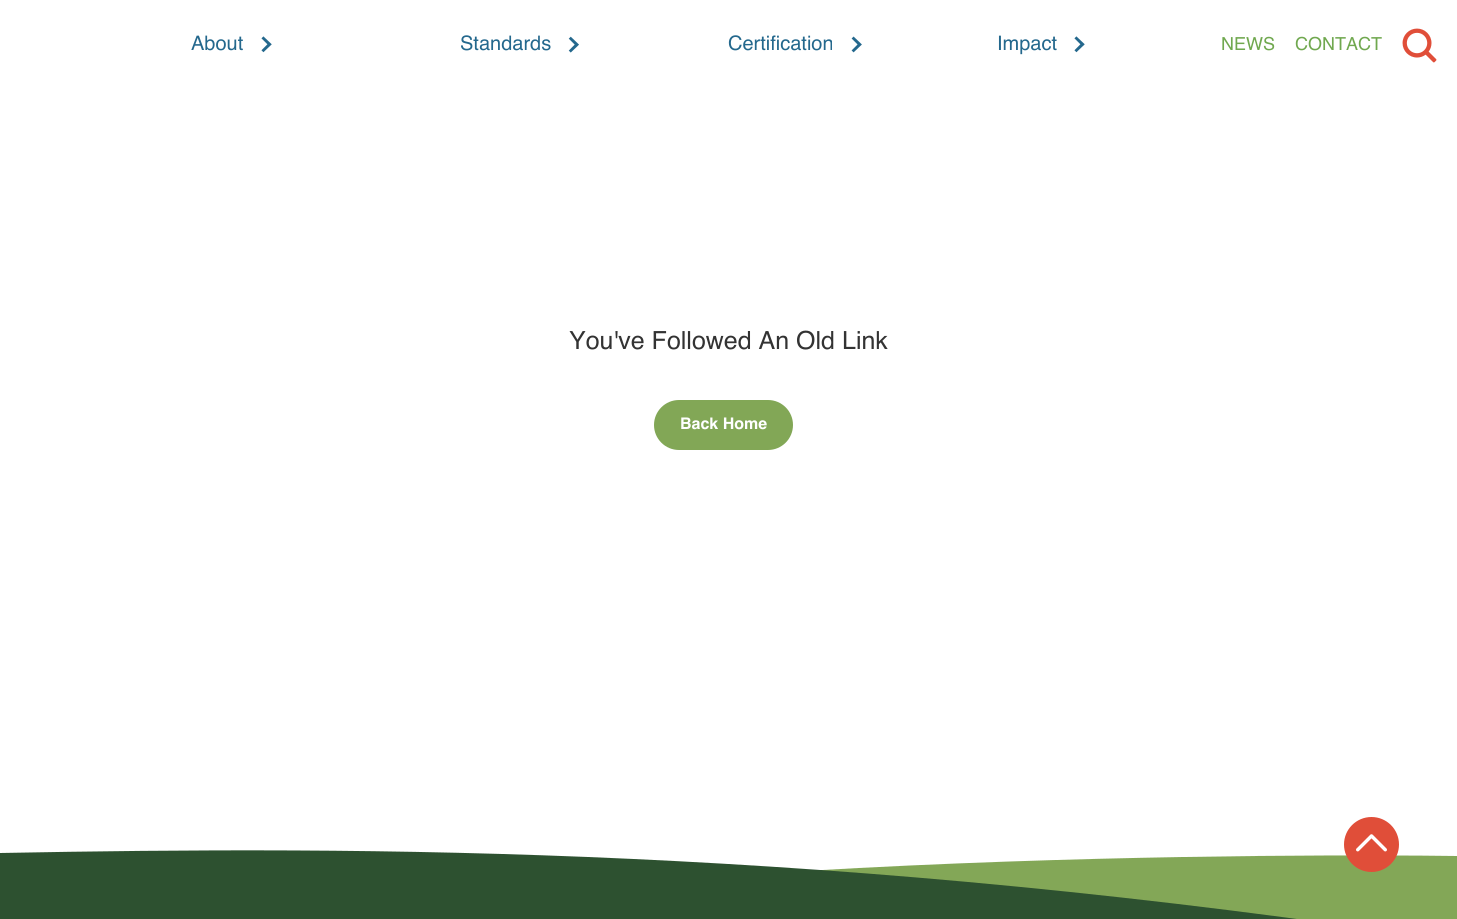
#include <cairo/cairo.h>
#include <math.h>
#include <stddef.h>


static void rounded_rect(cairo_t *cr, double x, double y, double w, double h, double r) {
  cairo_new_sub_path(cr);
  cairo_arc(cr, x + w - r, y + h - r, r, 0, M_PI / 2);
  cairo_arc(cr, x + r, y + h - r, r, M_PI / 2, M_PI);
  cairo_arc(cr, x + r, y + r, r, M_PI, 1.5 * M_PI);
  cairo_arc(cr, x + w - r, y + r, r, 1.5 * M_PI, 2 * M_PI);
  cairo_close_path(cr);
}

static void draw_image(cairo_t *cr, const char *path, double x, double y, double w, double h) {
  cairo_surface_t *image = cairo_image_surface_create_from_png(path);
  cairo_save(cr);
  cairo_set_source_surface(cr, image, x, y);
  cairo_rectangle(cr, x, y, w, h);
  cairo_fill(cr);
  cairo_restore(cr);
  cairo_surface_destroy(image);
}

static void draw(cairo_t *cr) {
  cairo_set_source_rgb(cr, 1, 1, 1);
  cairo_paint(cr);
  draw_image(cr, "images/1.png", 261, 36, 11, 17);
  draw_image(cr, "images/2.png", 568, 36, 11, 17);
  draw_image(cr, "images/3.png", 851, 36, 11, 17);
  draw_image(cr, "images/4.png", 1074, 36, 11, 17);
  draw_image(cr, "images/5.png", 1402, 28, 35, 35);
  cairo_set_source_rgb(cr, 130 / 255.0, 167 / 255.0, 86 / 255.0);
  rounded_rect(cr, 654, 400, 139, 50, 25);
  cairo_fill(cr);
  cairo_set_source_rgb(cr, 131 / 255.0, 167 / 255.0, 87 / 255.0);
  cairo_new_path(cr);
  cairo_move_to(cr, 1457, 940);
  cairo_line_to(cr, 1457, 856);
  cairo_curve_to(cr, 1457, 856, 662, 843, 231, 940);
  cairo_close_path(cr);
  cairo_fill(cr);
  cairo_set_source_rgb(cr, 45 / 255.0, 81 / 255.0, 48 / 255.0);
  cairo_new_path(cr);
  cairo_move_to(cr, 0, 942);
  cairo_line_to(cr, 0, 853);
  cairo_curve_to(cr, 365, 846, 832, 846, 1457, 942);
  cairo_close_path(cr);
  cairo_fill(cr);
  draw_image(cr, "images/6.png", 1344, 817, 55, 55);
  cairo_select_font_face(cr, "Helvetica", CAIRO_FONT_SLANT_NORMAL, CAIRO_FONT_WEIGHT_NORMAL);
  cairo_set_font_size(cr, 20);
  cairo_set_source_rgb(cr, 36 / 255.0, 104 / 255.0, 141 / 255.0);
  cairo_move_to(cr, 191, 50);
  cairo_show_text(cr, "About");
  cairo_move_to(cr, 460, 50);
  cairo_show_text(cr, "Standards");
  cairo_move_to(cr, 728, 50);
  cairo_show_text(cr, "Certification");
  cairo_move_to(cr, 997, 50);
  cairo_show_text(cr, "Impact");
  cairo_set_font_size(cr, 18);
  cairo_set_source_rgb(cr, 112 / 255.0, 168 / 255.0, 79 / 255.0);
  cairo_move_to(cr, 1221, 50);
  cairo_show_text(cr, "NEWS");
  cairo_move_to(cr, 1295, 50);
  cairo_show_text(cr, "CONTACT");
  cairo_set_font_size(cr, 25);
  cairo_set_source_rgb(cr, 51 / 255.0, 51 / 255.0, 51 / 255.0);
  cairo_move_to(cr, 569, 349);
  cairo_show_text(cr, "You've Followed An Old Link");
  cairo_select_font_face(cr, "Helvetica", CAIRO_FONT_SLANT_NORMAL, CAIRO_FONT_WEIGHT_BOLD);
  cairo_set_font_size(cr, 16);
  cairo_set_source_rgb(cr, 1, 1, 1);
  cairo_move_to(cr, 680, 429);
  cairo_show_text(cr, "Back Home");
}

int main(void) {
  cairo_surface_t *surface = cairo_image_surface_create(CAIRO_FORMAT_RGB24, 1457, 919);
  cairo_t *cr = cairo_create(surface);
  cairo_font_options_t *options = cairo_font_options_create();
  cairo_font_options_set_hint_metrics(options, CAIRO_HINT_METRICS_OFF);
  cairo_font_options_set_hint_style(options, CAIRO_HINT_STYLE_NONE);
  cairo_set_font_options(cr, options);
  cairo_set_miter_limit(cr, 4);
  draw(cr);
  cairo_surface_write_to_png(surface, "out.png");
  cairo_font_options_destroy(options);
  cairo_destroy(cr);
  cairo_surface_destroy(surface);
  return 0;
}
